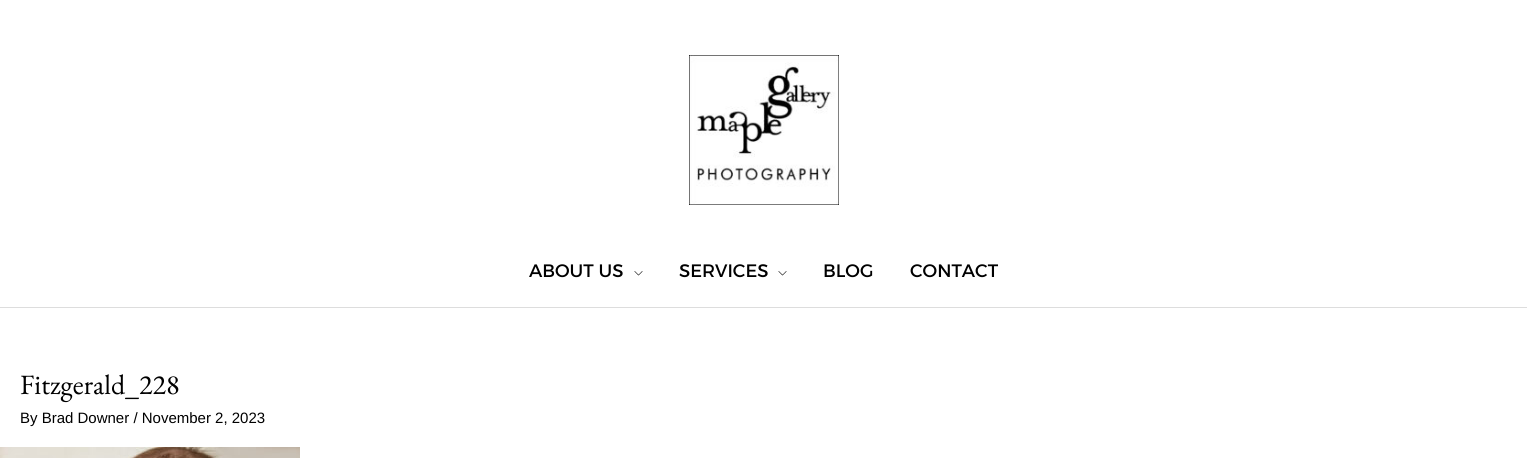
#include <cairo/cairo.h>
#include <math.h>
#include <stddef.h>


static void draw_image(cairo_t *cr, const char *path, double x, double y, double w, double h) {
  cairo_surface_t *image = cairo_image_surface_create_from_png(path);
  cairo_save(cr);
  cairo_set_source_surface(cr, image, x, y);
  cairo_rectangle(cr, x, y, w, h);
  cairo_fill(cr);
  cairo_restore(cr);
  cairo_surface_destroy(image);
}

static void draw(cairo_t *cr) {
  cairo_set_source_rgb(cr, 1, 1, 1);
  cairo_paint(cr);
  cairo_set_source_rgb(cr, 221 / 255.0, 221 / 255.0, 221 / 255.0);
  cairo_rectangle(cr, 0, 307, 1527, 1);
  cairo_fill(cr);
  draw_image(cr, "images/1.png", 689, 55, 150, 150);
  draw_image(cr, "images/2.png", 634, 271, 9, 5);
  draw_image(cr, "images/2.png", 778, 271, 9, 5);
  draw_image(cr, "images/3.png", 0, 447, 300, 11);
  cairo_select_font_face(cr, "Alexandria", CAIRO_FONT_SLANT_NORMAL, CAIRO_FONT_WEIGHT_NORMAL);
  cairo_set_font_size(cr, 18);
  cairo_set_source_rgb(cr, 0, 0, 0);
  cairo_move_to(cr, 529, 277);
  cairo_show_text(cr, "ABOUT US");
  cairo_move_to(cr, 679, 277);
  cairo_show_text(cr, "SERVICES");
  cairo_move_to(cr, 823, 277);
  cairo_show_text(cr, "BLOG");
  cairo_move_to(cr, 910, 277);
  cairo_show_text(cr, "CONTACT");
  cairo_select_font_face(cr, "EB Garamond", CAIRO_FONT_SLANT_NORMAL, CAIRO_FONT_WEIGHT_NORMAL);
  cairo_set_font_size(cr, 28);
  cairo_move_to(cr, 20, 394);
  cairo_show_text(cr, "Fitzgerald_228");
  cairo_select_font_face(cr, "Liberation Sans", CAIRO_FONT_SLANT_NORMAL, CAIRO_FONT_WEIGHT_NORMAL);
  cairo_set_font_size(cr, 15);
  cairo_move_to(cr, 20, 423);
  cairo_show_text(cr, "By Brad Downer / November 2, 2023");
}

int main(void) {
  cairo_surface_t *surface = cairo_image_surface_create(CAIRO_FORMAT_RGB24, 1527, 458);
  cairo_t *cr = cairo_create(surface);
  cairo_font_options_t *options = cairo_font_options_create();
  cairo_font_options_set_hint_metrics(options, CAIRO_HINT_METRICS_OFF);
  cairo_font_options_set_hint_style(options, CAIRO_HINT_STYLE_NONE);
  cairo_set_font_options(cr, options);
  cairo_set_miter_limit(cr, 4);
  draw(cr);
  cairo_surface_write_to_png(surface, "out.png");
  cairo_font_options_destroy(options);
  cairo_destroy(cr);
  cairo_surface_destroy(surface);
  return 0;
}
